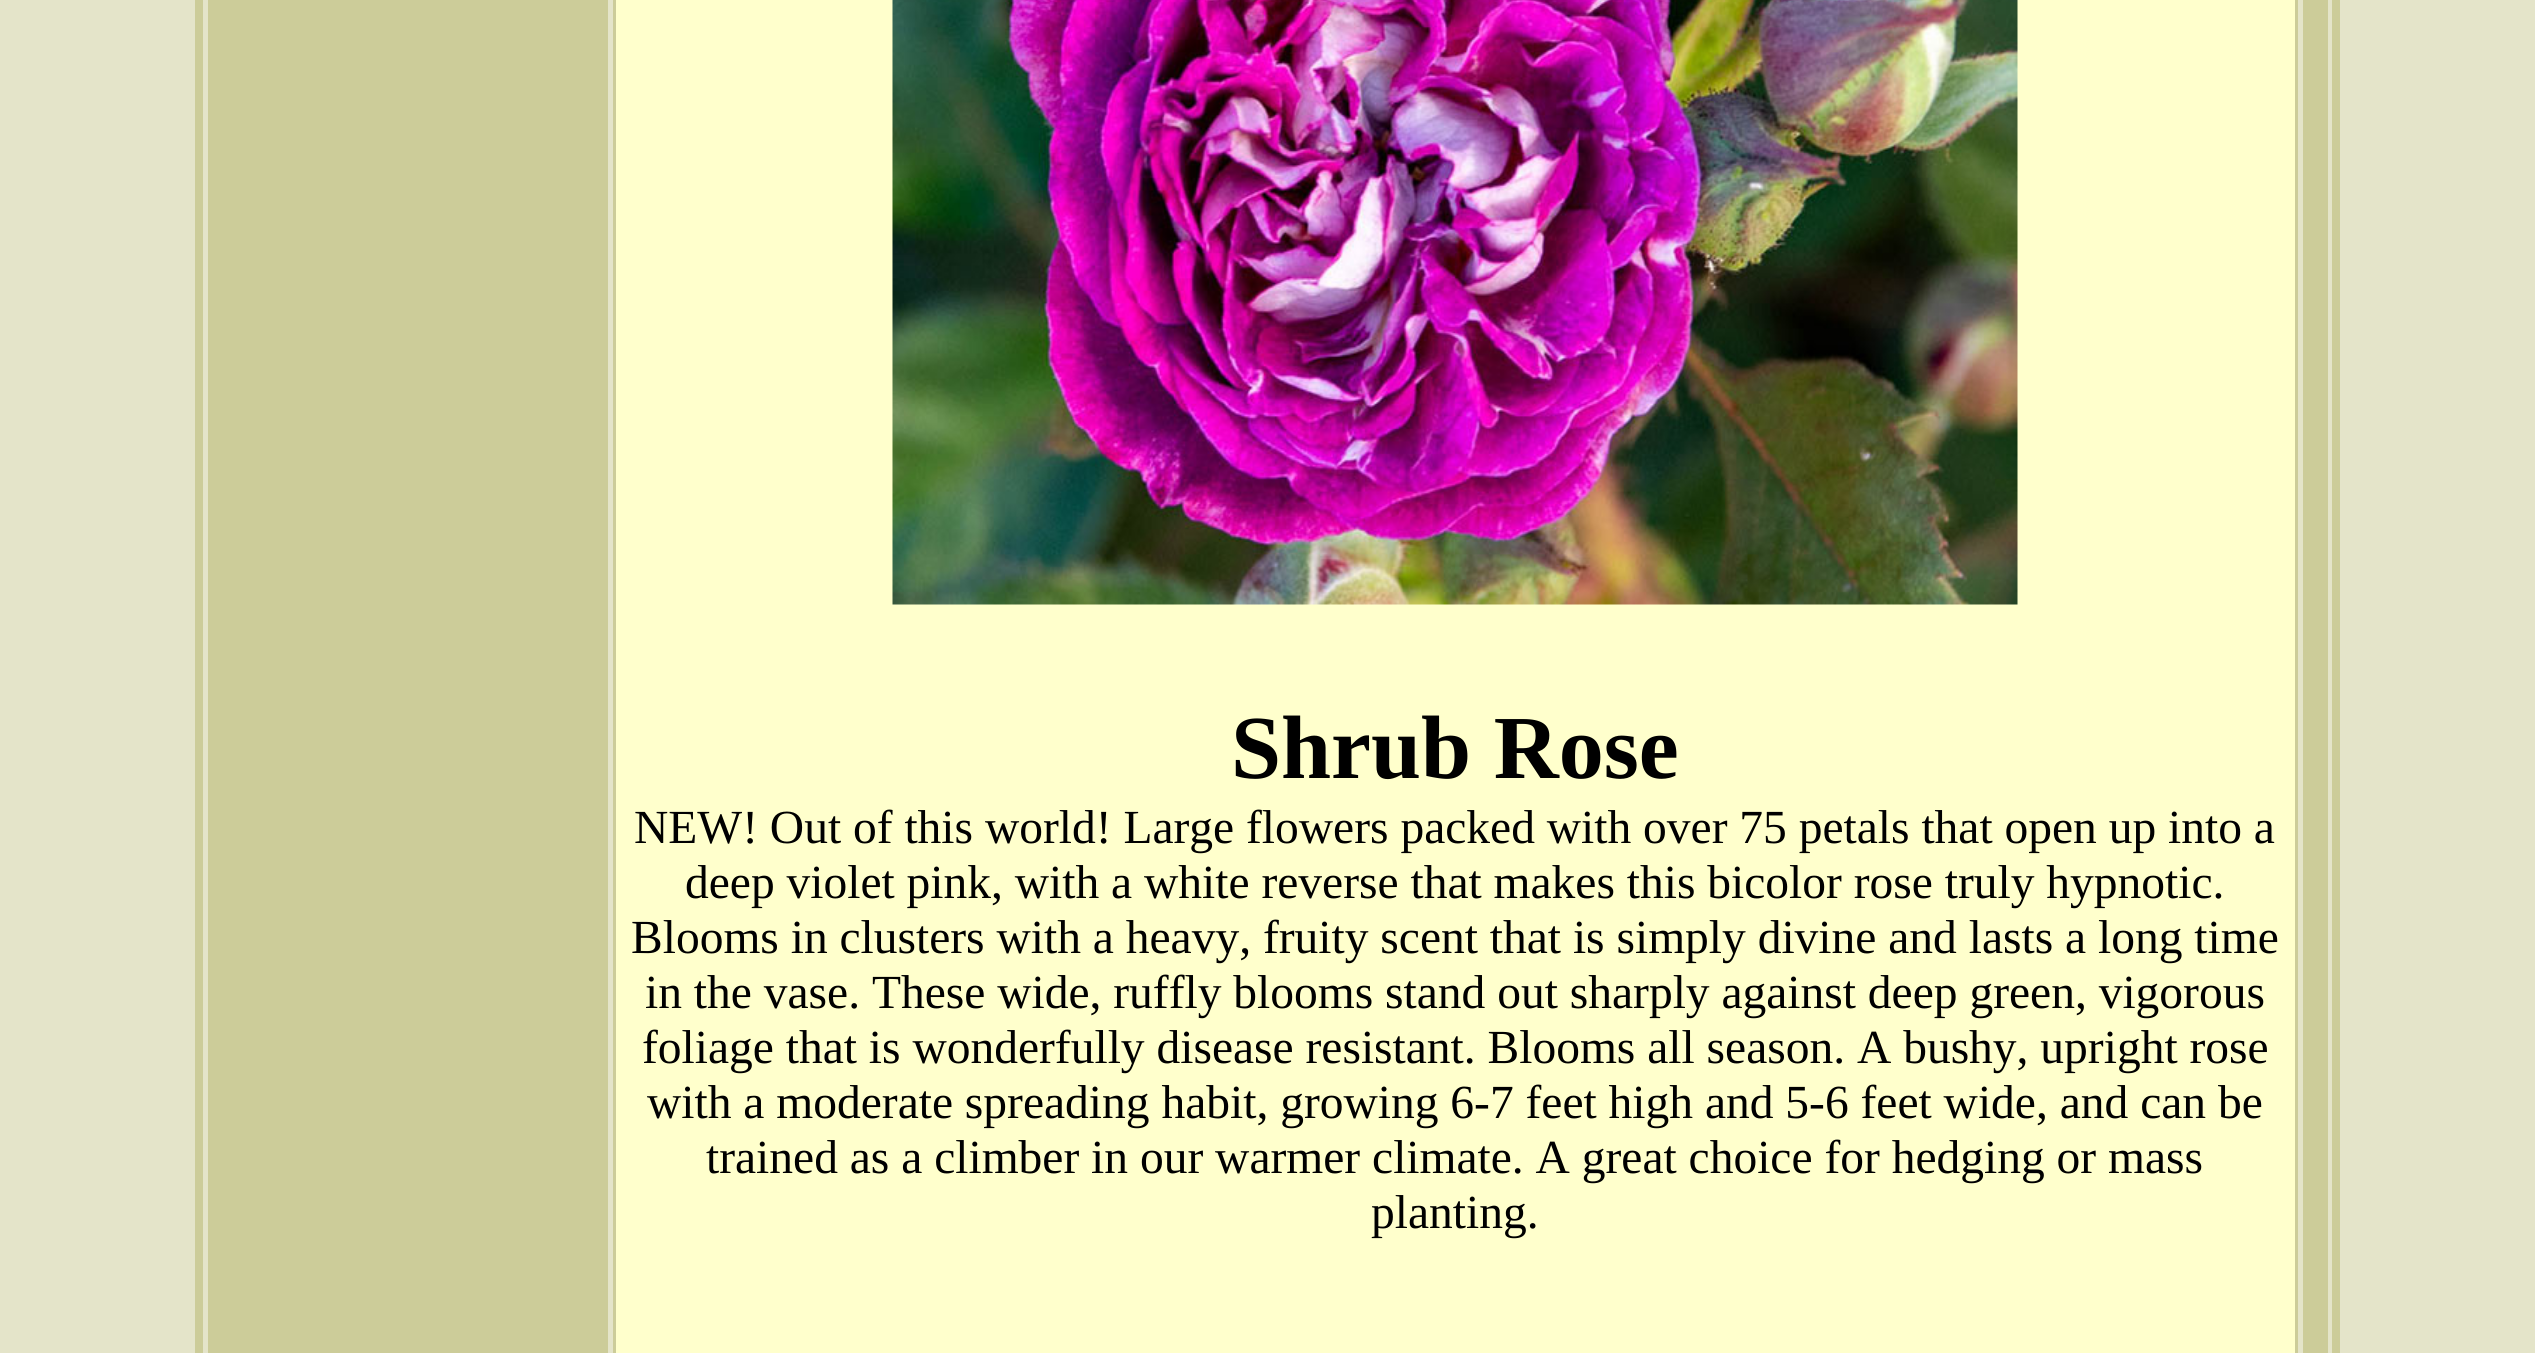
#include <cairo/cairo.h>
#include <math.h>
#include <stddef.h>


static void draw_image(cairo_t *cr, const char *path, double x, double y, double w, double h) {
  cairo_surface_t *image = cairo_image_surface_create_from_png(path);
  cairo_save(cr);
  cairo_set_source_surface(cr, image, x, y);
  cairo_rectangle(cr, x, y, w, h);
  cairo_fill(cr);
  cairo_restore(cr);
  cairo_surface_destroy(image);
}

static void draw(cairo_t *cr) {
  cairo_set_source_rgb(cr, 228 / 255.0, 228 / 255.0, 201 / 255.0);
  cairo_paint(cr);
  cairo_rectangle(cr, 199, -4, 2137, 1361);
  cairo_set_source_rgb(cr, 204 / 255.0, 204 / 255.0, 153 / 255.0);
  cairo_set_line_width(cr, 8);
  cairo_stroke(cr);
  cairo_rectangle(cr, 208, 0, 400, 1353);
  cairo_fill(cr);
  cairo_set_source_rgb(cr, 1, 1, 204 / 255.0);
  cairo_rectangle(cr, 614.5, -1.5, 1682, 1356);
  cairo_fill_preserve(cr);
  cairo_set_source_rgb(cr, 204 / 255.0, 204 / 255.0, 153 / 255.0);
  cairo_set_line_width(cr, 3);
  cairo_stroke(cr);
  draw_image(cr, "images/1.png", 892, 0, 1126, 605);
  cairo_rectangle(cr, 2303, 0, 25, 1353);
  cairo_fill(cr);
  cairo_select_font_face(cr, "Liberation Serif", CAIRO_FONT_SLANT_NORMAL, CAIRO_FONT_WEIGHT_BOLD);
  cairo_set_font_size(cr, 90);
  cairo_set_source_rgb(cr, 0, 0, 0);
  cairo_move_to(cr, 1231, 778);
  cairo_show_text(cr, "Shrub Rose");
  cairo_select_font_face(cr, "Liberation Serif", CAIRO_FONT_SLANT_NORMAL, CAIRO_FONT_WEIGHT_NORMAL);
  cairo_set_font_size(cr, 47.5);
  cairo_move_to(cr, 634, 843);
  cairo_show_text(cr, "NEW! Out of this world! Large flowers packed with over 75 petals that open up into a");
  cairo_move_to(cr, 685, 898);
  cairo_show_text(cr, "deep violet pink, with a white reverse that makes this bicolor rose truly hypnotic.");
  cairo_move_to(cr, 631, 953);
  cairo_show_text(cr, "Blooms in clusters with a heavy, fruity scent that is simply divine and lasts a long time");
  cairo_move_to(cr, 645, 1008);
  cairo_show_text(cr, "in the vase. These wide, ruffly blooms stand out sharply against deep green, vigorous");
  cairo_move_to(cr, 642, 1063);
  cairo_show_text(cr, "foliage that is wonderfully disease resistant. Blooms all season. A bushy, upright rose");
  cairo_move_to(cr, 647, 1118);
  cairo_show_text(cr, "with a moderate spreading habit, growing 6-7 feet high and 5-6 feet wide, and can be");
  cairo_move_to(cr, 706, 1173);
  cairo_show_text(cr, "trained as a climber in our warmer climate. A great choice for hedging or mass");
  cairo_move_to(cr, 1371, 1228);
  cairo_show_text(cr, "planting.");
}

int main(void) {
  cairo_surface_t *surface = cairo_image_surface_create(CAIRO_FORMAT_RGB24, 2535, 1353);
  cairo_t *cr = cairo_create(surface);
  cairo_font_options_t *options = cairo_font_options_create();
  cairo_font_options_set_hint_metrics(options, CAIRO_HINT_METRICS_OFF);
  cairo_font_options_set_hint_style(options, CAIRO_HINT_STYLE_NONE);
  cairo_set_font_options(cr, options);
  cairo_set_miter_limit(cr, 4);
  draw(cr);
  cairo_surface_write_to_png(surface, "out.png");
  cairo_font_options_destroy(options);
  cairo_destroy(cr);
  cairo_surface_destroy(surface);
  return 0;
}
